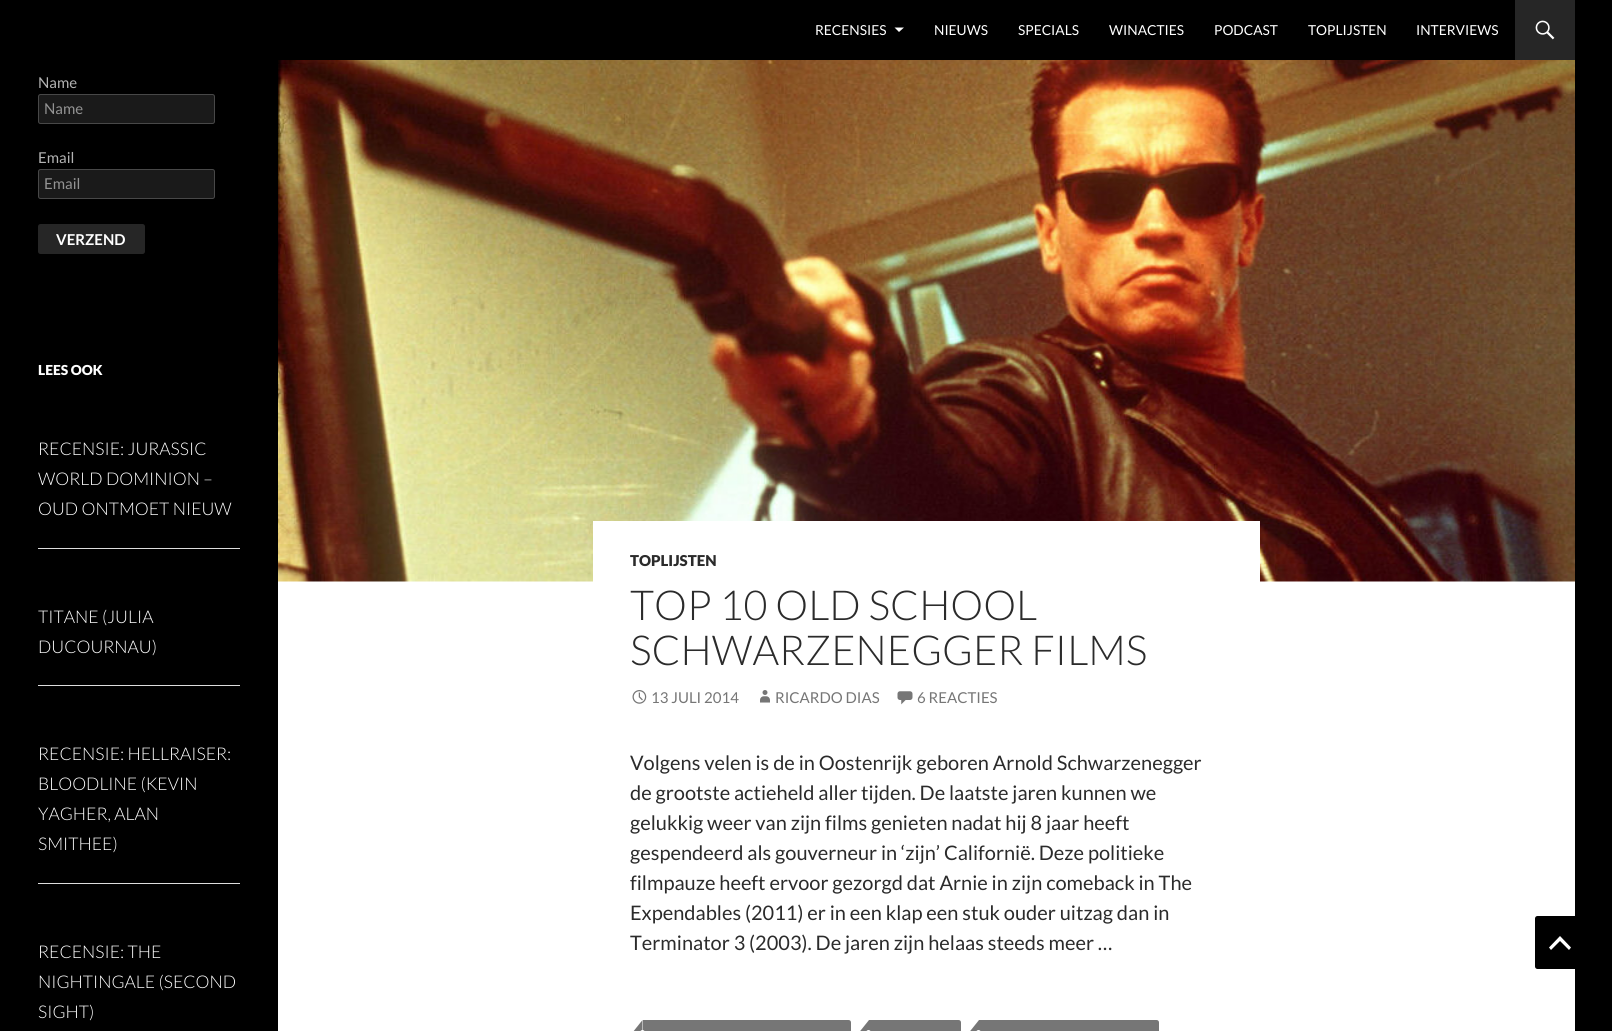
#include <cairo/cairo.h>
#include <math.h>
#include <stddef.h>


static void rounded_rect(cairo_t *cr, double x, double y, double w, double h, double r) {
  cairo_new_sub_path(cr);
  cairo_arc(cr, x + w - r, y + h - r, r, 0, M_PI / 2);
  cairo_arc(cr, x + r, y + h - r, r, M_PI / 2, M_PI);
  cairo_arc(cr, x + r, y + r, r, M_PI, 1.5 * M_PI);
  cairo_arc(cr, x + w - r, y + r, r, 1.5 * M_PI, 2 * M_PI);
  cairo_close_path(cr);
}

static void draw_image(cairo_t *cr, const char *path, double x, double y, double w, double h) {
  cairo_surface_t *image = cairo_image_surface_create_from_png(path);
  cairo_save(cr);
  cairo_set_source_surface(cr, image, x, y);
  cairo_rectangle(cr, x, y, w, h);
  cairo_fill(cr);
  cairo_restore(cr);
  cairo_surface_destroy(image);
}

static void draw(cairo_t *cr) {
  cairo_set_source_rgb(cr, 0, 0, 0);
  cairo_paint(cr);
  cairo_set_source_rgb(cr, 1, 1, 1);
  cairo_rectangle(cr, 278, 581, 1297, 450);
  cairo_fill(cr);
  cairo_new_path(cr);
  cairo_move_to(cr, 894.5, 27.5);
  cairo_line_to(cr, 904, 27.5);
  cairo_line_to(cr, 899, 32);
  cairo_close_path(cr);
  cairo_fill(cr);
  cairo_set_source_rgb(cr, 38 / 255.0, 38 / 255.0, 38 / 255.0);
  cairo_rectangle(cr, 1515, 0, 60, 60);
  cairo_fill(cr);
  draw_image(cr, "images/1.png", 1535, 20, 20, 20);
  cairo_set_source_rgb(cr, 26 / 255.0, 26 / 255.0, 26 / 255.0);
  rounded_rect(cr, 38, 94, 177, 30, 2.5);
  cairo_fill(cr);
  rounded_rect(cr, 38.5, 94.5, 176, 29, 2);
  cairo_set_source_rgba(cr, 1, 1, 1, 0.2);
  cairo_set_line_width(cr, 1);
  cairo_stroke(cr);
  cairo_set_source_rgb(cr, 26 / 255.0, 26 / 255.0, 26 / 255.0);
  rounded_rect(cr, 38, 169, 177, 30, 2.5);
  cairo_fill(cr);
  rounded_rect(cr, 38.5, 169.5, 176, 29, 2);
  cairo_set_source_rgba(cr, 1, 1, 1, 0.2);
  cairo_stroke(cr);
  cairo_set_source_rgb(cr, 38 / 255.0, 38 / 255.0, 38 / 255.0);
  rounded_rect(cr, 38, 224, 107, 30, 2.5);
  cairo_fill(cr);
  cairo_set_source_rgb(cr, 221 / 255.0, 221 / 255.0, 221 / 255.0);
  cairo_rectangle(cr, 38, 548, 202, 1);
  cairo_fill(cr);
  cairo_rectangle(cr, 38, 685, 202, 1);
  cairo_fill(cr);
  cairo_rectangle(cr, 38, 883, 202, 1);
  cairo_fill(cr);
  draw_image(cr, "images/2.png", 278, 60, 1297, 522);
  cairo_set_source_rgb(cr, 1, 1, 1);
  cairo_rectangle(cr, 593, 521, 667, 61);
  cairo_fill(cr);
  draw_image(cr, "images/3.png", 632, 690, 15, 14);
  draw_image(cr, "images/4.png", 760, 690, 10, 13);
  draw_image(cr, "images/5.png", 897, 691, 16, 14);
  cairo_set_source_rgb(cr, 118 / 255.0, 118 / 255.0, 118 / 255.0);
  cairo_new_path(cr);
  cairo_move_to(cr, 643, 1020);
  cairo_line_to(cr, 848.5, 1020);
  cairo_curve_to(cr, 850, 1020, 851, 1021, 851, 1022.5);
  cairo_line_to(cr, 851, 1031.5);
  cairo_curve_to(cr, 851, 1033, 850, 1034, 848.5, 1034);
  cairo_line_to(cr, 643, 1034);
  cairo_close_path(cr);
  cairo_fill(cr);
  cairo_new_path(cr);
  cairo_move_to(cr, 642.5, 1020);
  cairo_line_to(cr, 642.5, 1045);
  cairo_line_to(cr, 632.5, 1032.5);
  cairo_close_path(cr);
  cairo_fill(cr);
  cairo_set_source_rgb(cr, 1, 1, 1);
  rounded_rect(cr, 640, 1030, 5, 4, 2.5);
  cairo_fill(cr);
  cairo_set_source_rgb(cr, 118 / 255.0, 118 / 255.0, 118 / 255.0);
  cairo_new_path(cr);
  cairo_move_to(cr, 869, 1020);
  cairo_line_to(cr, 958.5, 1020);
  cairo_curve_to(cr, 960, 1020, 961, 1021, 961, 1022.5);
  cairo_line_to(cr, 961, 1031.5);
  cairo_curve_to(cr, 961, 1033, 960, 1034, 958.5, 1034);
  cairo_line_to(cr, 869, 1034);
  cairo_close_path(cr);
  cairo_fill(cr);
  cairo_new_path(cr);
  cairo_move_to(cr, 869, 1020);
  cairo_line_to(cr, 869, 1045);
  cairo_line_to(cr, 859, 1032.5);
  cairo_close_path(cr);
  cairo_fill(cr);
  cairo_set_source_rgb(cr, 1, 1, 1);
  rounded_rect(cr, 866, 1030, 5, 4, 2.5);
  cairo_fill(cr);
  cairo_set_source_rgb(cr, 118 / 255.0, 118 / 255.0, 118 / 255.0);
  cairo_new_path(cr);
  cairo_move_to(cr, 979, 1020);
  cairo_line_to(cr, 1156.5, 1020);
  cairo_curve_to(cr, 1158, 1020, 1159, 1021, 1159, 1022.5);
  cairo_line_to(cr, 1159, 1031.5);
  cairo_curve_to(cr, 1159, 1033, 1158, 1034, 1156.5, 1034);
  cairo_line_to(cr, 979, 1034);
  cairo_close_path(cr);
  cairo_fill(cr);
  cairo_new_path(cr);
  cairo_move_to(cr, 979, 1020);
  cairo_line_to(cr, 979, 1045);
  cairo_line_to(cr, 969, 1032.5);
  cairo_close_path(cr);
  cairo_fill(cr);
  cairo_set_source_rgb(cr, 1, 1, 1);
  rounded_rect(cr, 976, 1030, 5, 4, 2.5);
  cairo_fill(cr);
  cairo_set_source_rgb(cr, 0, 0, 0);
  rounded_rect(cr, 1535, 916, 53, 53, 2.5);
  cairo_fill(cr);
  cairo_set_source_rgb(cr, 1, 1, 1);
  cairo_new_path(cr);
  cairo_move_to(cr, 1569, 950);
  cairo_line_to(cr, 1560, 941);
  cairo_line_to(cr, 1551, 950);
  cairo_line_to(cr, 1549, 947.5);
  cairo_line_to(cr, 1560, 936);
  cairo_line_to(cr, 1571, 947.5);
  cairo_close_path(cr);
  cairo_fill(cr);
  cairo_select_font_face(cr, "Lato", CAIRO_FONT_SLANT_NORMAL, CAIRO_FONT_WEIGHT_NORMAL);
  cairo_set_font_size(cr, 13.75);
  cairo_move_to(cr, 815, 35);
  cairo_show_text(cr, "RECENSIES");
  cairo_move_to(cr, 934, 35);
  cairo_show_text(cr, "NIEUWS");
  cairo_move_to(cr, 1018, 35);
  cairo_show_text(cr, "SPECIALS");
  cairo_move_to(cr, 1109, 35);
  cairo_show_text(cr, "WINACTIES");
  cairo_move_to(cr, 1214, 35);
  cairo_show_text(cr, "PODCAST");
  cairo_move_to(cr, 1308, 35);
  cairo_show_text(cr, "TOPLIJSTEN");
  cairo_move_to(cr, 1416, 35);
  cairo_show_text(cr, "INTERVIEWS");
  cairo_set_font_size(cr, 15);
  cairo_set_source_rgb(cr, 179 / 255.0, 179 / 255.0, 179 / 255.0);
  cairo_move_to(cr, 38, 88);
  cairo_show_text(cr, "Name");
  cairo_set_source_rgb(cr, 147 / 255.0, 147 / 255.0, 147 / 255.0);
  cairo_move_to(cr, 44, 114);
  cairo_show_text(cr, "Name");
  cairo_set_source_rgb(cr, 179 / 255.0, 179 / 255.0, 179 / 255.0);
  cairo_move_to(cr, 38, 163);
  cairo_show_text(cr, "Email");
  cairo_set_source_rgb(cr, 147 / 255.0, 147 / 255.0, 147 / 255.0);
  cairo_move_to(cr, 44, 189);
  cairo_show_text(cr, "Email");
  cairo_select_font_face(cr, "Lato", CAIRO_FONT_SLANT_NORMAL, CAIRO_FONT_WEIGHT_BOLD);
  cairo_set_source_rgb(cr, 1, 1, 1);
  cairo_move_to(cr, 56, 245);
  cairo_show_text(cr, "VERZEND");
  cairo_select_font_face(cr, "Lato Black", CAIRO_FONT_SLANT_NORMAL, CAIRO_FONT_WEIGHT_NORMAL);
  cairo_set_font_size(cr, 13.75);
  cairo_move_to(cr, 38, 375);
  cairo_show_text(cr, "LEES OOK");
  cairo_select_font_face(cr, "Lato Light", CAIRO_FONT_SLANT_NORMAL, CAIRO_FONT_WEIGHT_NORMAL);
  cairo_set_font_size(cr, 17.5);
  cairo_move_to(cr, 38, 455);
  cairo_show_text(cr, "RECENSIE: JURASSIC");
  cairo_move_to(cr, 38, 485);
  cairo_show_text(cr, "WORLD DOMINION –");
  cairo_move_to(cr, 38, 515);
  cairo_show_text(cr, "OUD ONTMOET NIEUW");
  cairo_move_to(cr, 38, 623);
  cairo_show_text(cr, "TITANE (JULIA");
  cairo_move_to(cr, 38, 653);
  cairo_show_text(cr, "DUCOURNAU)");
  cairo_move_to(cr, 38, 760);
  cairo_show_text(cr, "RECENSIE: HELLRAISER:");
  cairo_move_to(cr, 38, 790);
  cairo_show_text(cr, "BLOODLINE (KEVIN");
  cairo_move_to(cr, 38, 820);
  cairo_show_text(cr, "YAGHER, ALAN");
  cairo_move_to(cr, 38, 850);
  cairo_show_text(cr, "SMITHEE)");
  cairo_move_to(cr, 38, 958);
  cairo_show_text(cr, "RECENSIE: THE");
  cairo_move_to(cr, 38, 988);
  cairo_show_text(cr, "NIGHTINGALE (SECOND");
  cairo_move_to(cr, 38, 1018);
  cairo_show_text(cr, "SIGHT)");
  cairo_select_font_face(cr, "Lato Black", CAIRO_FONT_SLANT_NORMAL, CAIRO_FONT_WEIGHT_NORMAL);
  cairo_set_font_size(cr, 15);
  cairo_set_source_rgb(cr, 43 / 255.0, 43 / 255.0, 43 / 255.0);
  cairo_move_to(cr, 630, 566);
  cairo_show_text(cr, "TOPLIJSTEN");
  cairo_select_font_face(cr, "Lato Light", CAIRO_FONT_SLANT_NORMAL, CAIRO_FONT_WEIGHT_NORMAL);
  cairo_set_font_size(cr, 41.25);
  cairo_move_to(cr, 630, 620);
  cairo_show_text(cr, "TOP 10 OLD SCHOOL");
  cairo_move_to(cr, 630, 665);
  cairo_show_text(cr, "SCHWARZENEGGER FILMS");
  cairo_select_font_face(cr, "Lato", CAIRO_FONT_SLANT_NORMAL, CAIRO_FONT_WEIGHT_NORMAL);
  cairo_set_font_size(cr, 15);
  cairo_set_source_rgb(cr, 118 / 255.0, 118 / 255.0, 118 / 255.0);
  cairo_move_to(cr, 651, 703);
  cairo_show_text(cr, "13 JULI 2014");
  cairo_move_to(cr, 775, 703);
  cairo_show_text(cr, "RICARDO DIAS");
  cairo_move_to(cr, 917, 703);
  cairo_show_text(cr, "6 REACTIES");
  cairo_set_font_size(cr, 20);
  cairo_set_source_rgb(cr, 43 / 255.0, 43 / 255.0, 43 / 255.0);
  cairo_move_to(cr, 630, 770);
  cairo_show_text(cr, "Volgens velen is de in Oostenrijk geboren Arnold Schwarzenegger");
  cairo_move_to(cr, 630, 800);
  cairo_show_text(cr, "de grootste actieheld aller tijden. De laatste jaren kunnen we");
  cairo_move_to(cr, 630, 830);
  cairo_show_text(cr, "gelukkig weer van zijn films genieten nadat hij 8 jaar heeft");
  cairo_move_to(cr, 630, 860);
  cairo_show_text(cr, "gespendeerd als gouverneur in ‘zijn’ Californië. Deze politieke");
  cairo_move_to(cr, 630, 890);
  cairo_show_text(cr, "filmpauze heeft ervoor gezorgd dat Arnie in zijn comeback in The");
  cairo_move_to(cr, 630, 920);
  cairo_show_text(cr, "Expendables (2011) er in een klap een stuk ouder uitzag dan in");
  cairo_move_to(cr, 630, 950);
  cairo_show_text(cr, "Terminator 3 (2003). De jaren zijn helaas steeds meer …");
}

int main(void) {
  cairo_surface_t *surface = cairo_image_surface_create(CAIRO_FORMAT_RGB24, 1612, 1031);
  cairo_t *cr = cairo_create(surface);
  cairo_font_options_t *options = cairo_font_options_create();
  cairo_font_options_set_hint_metrics(options, CAIRO_HINT_METRICS_OFF);
  cairo_font_options_set_hint_style(options, CAIRO_HINT_STYLE_NONE);
  cairo_set_font_options(cr, options);
  cairo_set_miter_limit(cr, 4);
  draw(cr);
  cairo_surface_write_to_png(surface, "out.png");
  cairo_font_options_destroy(options);
  cairo_destroy(cr);
  cairo_surface_destroy(surface);
  return 0;
}
